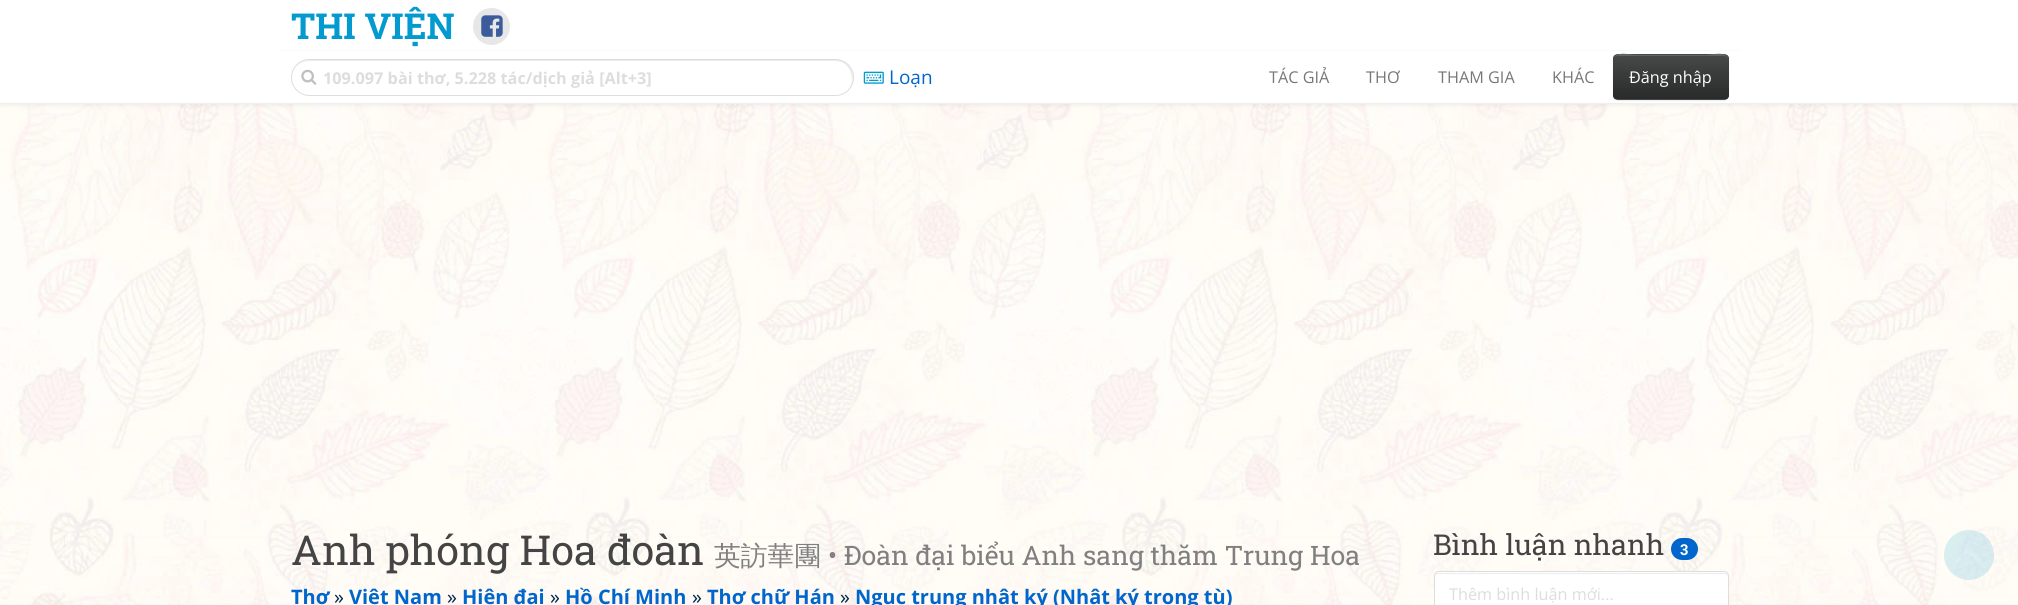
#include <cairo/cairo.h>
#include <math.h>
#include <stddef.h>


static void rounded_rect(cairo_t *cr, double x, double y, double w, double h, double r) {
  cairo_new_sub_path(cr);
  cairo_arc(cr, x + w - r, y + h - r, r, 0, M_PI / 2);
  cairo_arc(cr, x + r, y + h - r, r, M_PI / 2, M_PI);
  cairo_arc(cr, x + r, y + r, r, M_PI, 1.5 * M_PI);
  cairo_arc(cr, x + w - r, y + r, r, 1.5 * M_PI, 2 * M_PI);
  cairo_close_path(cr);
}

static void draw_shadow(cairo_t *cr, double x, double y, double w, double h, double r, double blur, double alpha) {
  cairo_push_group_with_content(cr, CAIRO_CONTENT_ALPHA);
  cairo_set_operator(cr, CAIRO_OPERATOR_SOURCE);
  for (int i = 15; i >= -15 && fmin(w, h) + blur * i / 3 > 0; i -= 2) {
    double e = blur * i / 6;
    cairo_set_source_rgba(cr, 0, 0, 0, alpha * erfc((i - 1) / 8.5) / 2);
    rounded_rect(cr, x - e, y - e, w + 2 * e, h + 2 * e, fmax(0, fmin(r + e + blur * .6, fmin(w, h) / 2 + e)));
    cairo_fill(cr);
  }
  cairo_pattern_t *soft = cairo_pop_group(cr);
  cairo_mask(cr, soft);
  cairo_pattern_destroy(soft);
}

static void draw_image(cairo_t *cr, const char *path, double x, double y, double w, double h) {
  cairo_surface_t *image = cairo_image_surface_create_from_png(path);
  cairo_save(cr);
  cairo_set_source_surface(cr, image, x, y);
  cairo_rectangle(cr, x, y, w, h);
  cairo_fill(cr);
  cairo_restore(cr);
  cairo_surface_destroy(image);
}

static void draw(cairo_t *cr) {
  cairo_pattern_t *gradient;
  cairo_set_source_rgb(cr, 1, 1, 1);
  cairo_paint(cr);
  draw_image(cr, "images/1.png", 0, 104, 2018, 501);
  cairo_set_source_rgb(cr, 0, 0, 0);
  draw_shadow(cr, 0, 1, 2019, 104, 0, 3, 0.07);
  cairo_set_source_rgb(cr, 1, 1, 1);
  cairo_rectangle(cr, 0, 0, 2018, 103);
  cairo_fill(cr);
  cairo_set_source_rgb(cr, 238 / 255.0, 238 / 255.0, 238 / 255.0);
  cairo_rectangle(cr, 0, 103, 2018, 1);
  cairo_fill(cr);
  cairo_set_source_rgb(cr, 250 / 255.0, 250 / 255.0, 250 / 255.0);
  cairo_rectangle(cr, 279, 50, 1462, 1);
  cairo_fill(cr);
  cairo_set_source_rgb(cr, 231 / 255.0, 231 / 255.0, 231 / 255.0);
  cairo_arc(cr, 491.5, 26.5, 18.5, 0, 2 * M_PI);
  cairo_fill(cr);
  draw_image(cr, "images/2.png", 481, 15, 22, 22);
  cairo_set_source_rgb(cr, 236 / 255.0, 236 / 255.0, 236 / 255.0);
  cairo_new_path(cr);
  cairo_move_to(cr, 310, 61);
  cairo_line_to(cr, 835, 61);
  cairo_curve_to(cr, 849, 61, 856, 77, 849, 88);
  cairo_curve_to(cr, 857, 78, 852, 63, 839, 60);
  cairo_line_to(cr, 308, 60);
  cairo_curve_to(cr, 304, 61, 299, 63, 296, 67);
  cairo_curve_to(cr, 300, 63, 304, 61, 310, 61);
  cairo_close_path(cr);
  cairo_fill(cr);
  rounded_rect(cr, 291.5, 59.5, 562, 36, 18);
  cairo_set_source_rgb(cr, 221 / 255.0, 221 / 255.0, 221 / 255.0);
  cairo_set_line_width(cr, 1);
  cairo_stroke(cr);
  draw_image(cr, "images/3.png", 301, 69, 16, 16);
  draw_image(cr, "images/4.png", 863, 71, 21, 13);
  cairo_set_source_rgb(cr, 0, 0, 0);
  draw_shadow(cr, 1613, 55, 116, 46, 5, 0.5, 0.07);
  cairo_set_source_rgb(cr, 71 / 255.0, 73 / 255.0, 73 / 255.0);
  rounded_rect(cr, 1613, 54, 116, 46, 5);
  cairo_fill(cr);
  cairo_save(cr);
  rounded_rect(cr, 1613, 54, 116, 46, 5);
  cairo_clip(cr);
  gradient = cairo_pattern_create_linear(1671, 55, 1671, 99);
  cairo_pattern_add_color_stop_rgba(gradient, 0, 71 / 255.0, 73 / 255.0, 73 / 255.0, 1);
  cairo_pattern_add_color_stop_rgba(gradient, 1, 41 / 255.0, 42 / 255.0, 42 / 255.0, 1);
  cairo_set_source(cr, gradient);
  cairo_pattern_destroy(gradient);
  cairo_rectangle(cr, 1613, 55, 116, 44);
  cairo_fill(cr);
  cairo_restore(cr);
  cairo_set_source_rgb(cr, 99 / 255.0, 100 / 255.0, 100 / 255.0);
  cairo_new_path(cr);
  cairo_move_to(cr, 1618, 56);
  cairo_line_to(cr, 1724, 56);
  cairo_curve_to(cr, 1726, 56, 1728, 58, 1728, 60);
  cairo_curve_to(cr, 1728, 50, 1710, 55, 1706, 55);
  cairo_line_to(cr, 1636, 55);
  cairo_curve_to(cr, 1632, 55, 1614, 50, 1614, 60);
  cairo_curve_to(cr, 1614, 58, 1615, 56, 1618, 56);
  cairo_close_path(cr);
  cairo_fill(cr);
  cairo_set_source_rgba(cr, 2 / 255.0, 154 / 255.0, 207 / 255.0, 0.15);
  cairo_arc(cr, 1969, 555, 25, 0, 2 * M_PI);
  cairo_fill(cr);
  draw_image(cr, "images/5.png", 1955, 548, 26, 16);
  cairo_set_source_rgb(cr, 0, 102 / 255.0, 204 / 255.0);
  rounded_rect(cr, 1671, 538, 27, 22, 11);
  cairo_fill(cr);
  cairo_set_source_rgb(cr, 1, 1, 1);
  rounded_rect(cr, 1434, 571, 295, 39, 5);
  cairo_fill(cr);
  cairo_set_source_rgb(cr, 236 / 255.0, 236 / 255.0, 236 / 255.0);
  cairo_new_path(cr);
  cairo_move_to(cr, 1439, 574);
  cairo_line_to(cr, 1724, 574);
  cairo_curve_to(cr, 1726, 574, 1728, 575, 1728, 578);
  cairo_curve_to(cr, 1728, 575, 1727, 573, 1724, 573);
  cairo_line_to(cr, 1439, 573);
  cairo_curve_to(cr, 1436, 573, 1435, 575, 1435, 578);
  cairo_curve_to(cr, 1435, 575, 1437, 574, 1439, 574);
  cairo_close_path(cr);
  cairo_fill(cr);
  rounded_rect(cr, 1434.5, 571.5, 294, 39, 4.5);
  cairo_set_source_rgb(cr, 221 / 255.0, 221 / 255.0, 221 / 255.0);
  cairo_stroke(cr);
  cairo_select_font_face(cr, "Roboto Slab", CAIRO_FONT_SLANT_NORMAL, CAIRO_FONT_WEIGHT_BOLD);
  cairo_set_font_size(cr, 35.75);
  cairo_set_source_rgb(cr, 2 / 255.0, 154 / 255.0, 207 / 255.0);
  cairo_move_to(cr, 291, 39);
  cairo_show_text(cr, "THI VIỆN");
  cairo_select_font_face(cr, "Open Sans", CAIRO_FONT_SLANT_NORMAL, CAIRO_FONT_WEIGHT_BOLD);
  cairo_set_font_size(cr, 16.25);
  cairo_set_source_rgb(cr, 221 / 255.0, 221 / 255.0, 221 / 255.0);
  cairo_move_to(cr, 323, 84);
  cairo_show_text(cr, "109.097 bài thơ, 5.228 tác/dịch giả [Alt+3]");
  cairo_select_font_face(cr, "Open Sans", CAIRO_FONT_SLANT_NORMAL, CAIRO_FONT_WEIGHT_NORMAL);
  cairo_set_font_size(cr, 19);
  cairo_set_source_rgb(cr, 0, 102 / 255.0, 204 / 255.0);
  cairo_move_to(cr, 889, 84);
  cairo_show_text(cr, "Loạn");
  cairo_set_font_size(cr, 16.25);
  cairo_set_source_rgb(cr, 119 / 255.0, 119 / 255.0, 119 / 255.0);
  cairo_move_to(cr, 1269, 83);
  cairo_show_text(cr, "TÁC GIẢ");
  cairo_move_to(cr, 1366, 83);
  cairo_show_text(cr, "THƠ");
  cairo_move_to(cr, 1438, 83);
  cairo_show_text(cr, "THAM GIA");
  cairo_move_to(cr, 1552, 83);
  cairo_show_text(cr, "KHÁC");
  cairo_set_source_rgb(cr, 1, 1, 1);
  cairo_move_to(cr, 1629, 83);
  cairo_show_text(cr, "Đăng nhập");
  cairo_select_font_face(cr, "Roboto Slab", CAIRO_FONT_SLANT_NORMAL, CAIRO_FONT_WEIGHT_NORMAL);
  cairo_set_font_size(cr, 41.25);
  cairo_set_source_rgb(cr, 68 / 255.0, 68 / 255.0, 68 / 255.0);
  cairo_move_to(cr, 291, 565);
  cairo_show_text(cr, "Anh phóng Hoa đoàn");
  cairo_select_font_face(cr, "WenQuanYi Zen Hei Medium", CAIRO_FONT_SLANT_NORMAL, CAIRO_FONT_WEIGHT_NORMAL);
  cairo_set_font_size(cr, 26.8);
  cairo_set_source_rgb(cr, 128 / 255.0, 128 / 255.0, 128 / 255.0);
  cairo_move_to(cr, 714, 565);
  cairo_show_text(cr, "英訪華團");
  cairo_select_font_face(cr, "Roboto Slab", CAIRO_FONT_SLANT_NORMAL, CAIRO_FONT_WEIGHT_NORMAL);
  cairo_move_to(cr, 828, 565);
  cairo_show_text(cr, "• Đoàn đại biểu Anh sang thăm Trung Hoa");
  cairo_select_font_face(cr, "Open Sans", CAIRO_FONT_SLANT_NORMAL, CAIRO_FONT_WEIGHT_BOLD);
  cairo_set_font_size(cr, 20);
  cairo_set_source_rgb(cr, 0, 102 / 255.0, 204 / 255.0);
  cairo_move_to(cr, 291, 604);
  cairo_show_text(cr, "Thơ");
  cairo_select_font_face(cr, "Open Sans", CAIRO_FONT_SLANT_NORMAL, CAIRO_FONT_WEIGHT_NORMAL);
  cairo_set_source_rgb(cr, 0, 38 / 255.0, 77 / 255.0);
  cairo_move_to(cr, 334, 604);
  cairo_show_text(cr, "»");
  cairo_select_font_face(cr, "Open Sans", CAIRO_FONT_SLANT_NORMAL, CAIRO_FONT_WEIGHT_BOLD);
  cairo_set_source_rgb(cr, 0, 102 / 255.0, 204 / 255.0);
  cairo_move_to(cr, 349, 604);
  cairo_show_text(cr, "Việt Nam");
  cairo_select_font_face(cr, "Open Sans", CAIRO_FONT_SLANT_NORMAL, CAIRO_FONT_WEIGHT_NORMAL);
  cairo_set_source_rgb(cr, 0, 38 / 255.0, 77 / 255.0);
  cairo_move_to(cr, 447, 604);
  cairo_show_text(cr, "»");
  cairo_select_font_face(cr, "Open Sans", CAIRO_FONT_SLANT_NORMAL, CAIRO_FONT_WEIGHT_BOLD);
  cairo_set_source_rgb(cr, 0, 102 / 255.0, 204 / 255.0);
  cairo_move_to(cr, 462, 604);
  cairo_show_text(cr, "Hiện đại");
  cairo_select_font_face(cr, "Open Sans", CAIRO_FONT_SLANT_NORMAL, CAIRO_FONT_WEIGHT_NORMAL);
  cairo_set_source_rgb(cr, 0, 38 / 255.0, 77 / 255.0);
  cairo_move_to(cr, 550, 604);
  cairo_show_text(cr, "»");
  cairo_select_font_face(cr, "Open Sans", CAIRO_FONT_SLANT_NORMAL, CAIRO_FONT_WEIGHT_BOLD);
  cairo_set_source_rgb(cr, 0, 102 / 255.0, 204 / 255.0);
  cairo_move_to(cr, 565, 604);
  cairo_show_text(cr, "Hồ Chí Minh");
  cairo_select_font_face(cr, "Open Sans", CAIRO_FONT_SLANT_NORMAL, CAIRO_FONT_WEIGHT_NORMAL);
  cairo_set_source_rgb(cr, 0, 38 / 255.0, 77 / 255.0);
  cairo_move_to(cr, 692, 604);
  cairo_show_text(cr, "»");
  cairo_select_font_face(cr, "Open Sans", CAIRO_FONT_SLANT_NORMAL, CAIRO_FONT_WEIGHT_BOLD);
  cairo_set_source_rgb(cr, 0, 102 / 255.0, 204 / 255.0);
  cairo_move_to(cr, 707, 604);
  cairo_show_text(cr, "Thơ chữ Hán");
  cairo_select_font_face(cr, "Open Sans", CAIRO_FONT_SLANT_NORMAL, CAIRO_FONT_WEIGHT_NORMAL);
  cairo_set_source_rgb(cr, 0, 38 / 255.0, 77 / 255.0);
  cairo_move_to(cr, 840, 604);
  cairo_show_text(cr, "»");
  cairo_select_font_face(cr, "Open Sans", CAIRO_FONT_SLANT_NORMAL, CAIRO_FONT_WEIGHT_BOLD);
  cairo_set_source_rgb(cr, 0, 102 / 255.0, 204 / 255.0);
  cairo_move_to(cr, 855, 604);
  cairo_show_text(cr, "Ngục trung nhật ký (Nhật ký trong tù)");
  cairo_select_font_face(cr, "Roboto Slab", CAIRO_FONT_SLANT_NORMAL, CAIRO_FONT_WEIGHT_NORMAL);
  cairo_set_font_size(cr, 28.75);
  cairo_set_source_rgb(cr, 68 / 255.0, 68 / 255.0, 68 / 255.0);
  cairo_move_to(cr, 1433, 555);
  cairo_show_text(cr, "Bình luận nhanh");
  cairo_select_font_face(cr, "Roboto Slab", CAIRO_FONT_SLANT_NORMAL, CAIRO_FONT_WEIGHT_BOLD);
  cairo_set_font_size(cr, 15);
  cairo_set_source_rgb(cr, 1, 1, 1);
  cairo_move_to(cr, 1680, 555);
  cairo_show_text(cr, "3");
  cairo_select_font_face(cr, "Open Sans", CAIRO_FONT_SLANT_NORMAL, CAIRO_FONT_WEIGHT_NORMAL);
  cairo_set_font_size(cr, 16.25);
  cairo_set_source_rgb(cr, 221 / 255.0, 221 / 255.0, 221 / 255.0);
  cairo_move_to(cr, 1449, 600);
  cairo_show_text(cr, "Thêm bình luận mới...");
}

int main(void) {
  cairo_surface_t *surface = cairo_image_surface_create(CAIRO_FORMAT_RGB24, 2018, 605);
  cairo_t *cr = cairo_create(surface);
  cairo_font_options_t *options = cairo_font_options_create();
  cairo_font_options_set_hint_metrics(options, CAIRO_HINT_METRICS_OFF);
  cairo_font_options_set_hint_style(options, CAIRO_HINT_STYLE_NONE);
  cairo_set_font_options(cr, options);
  cairo_set_miter_limit(cr, 4);
  draw(cr);
  cairo_surface_write_to_png(surface, "out.png");
  cairo_font_options_destroy(options);
  cairo_destroy(cr);
  cairo_surface_destroy(surface);
  return 0;
}
